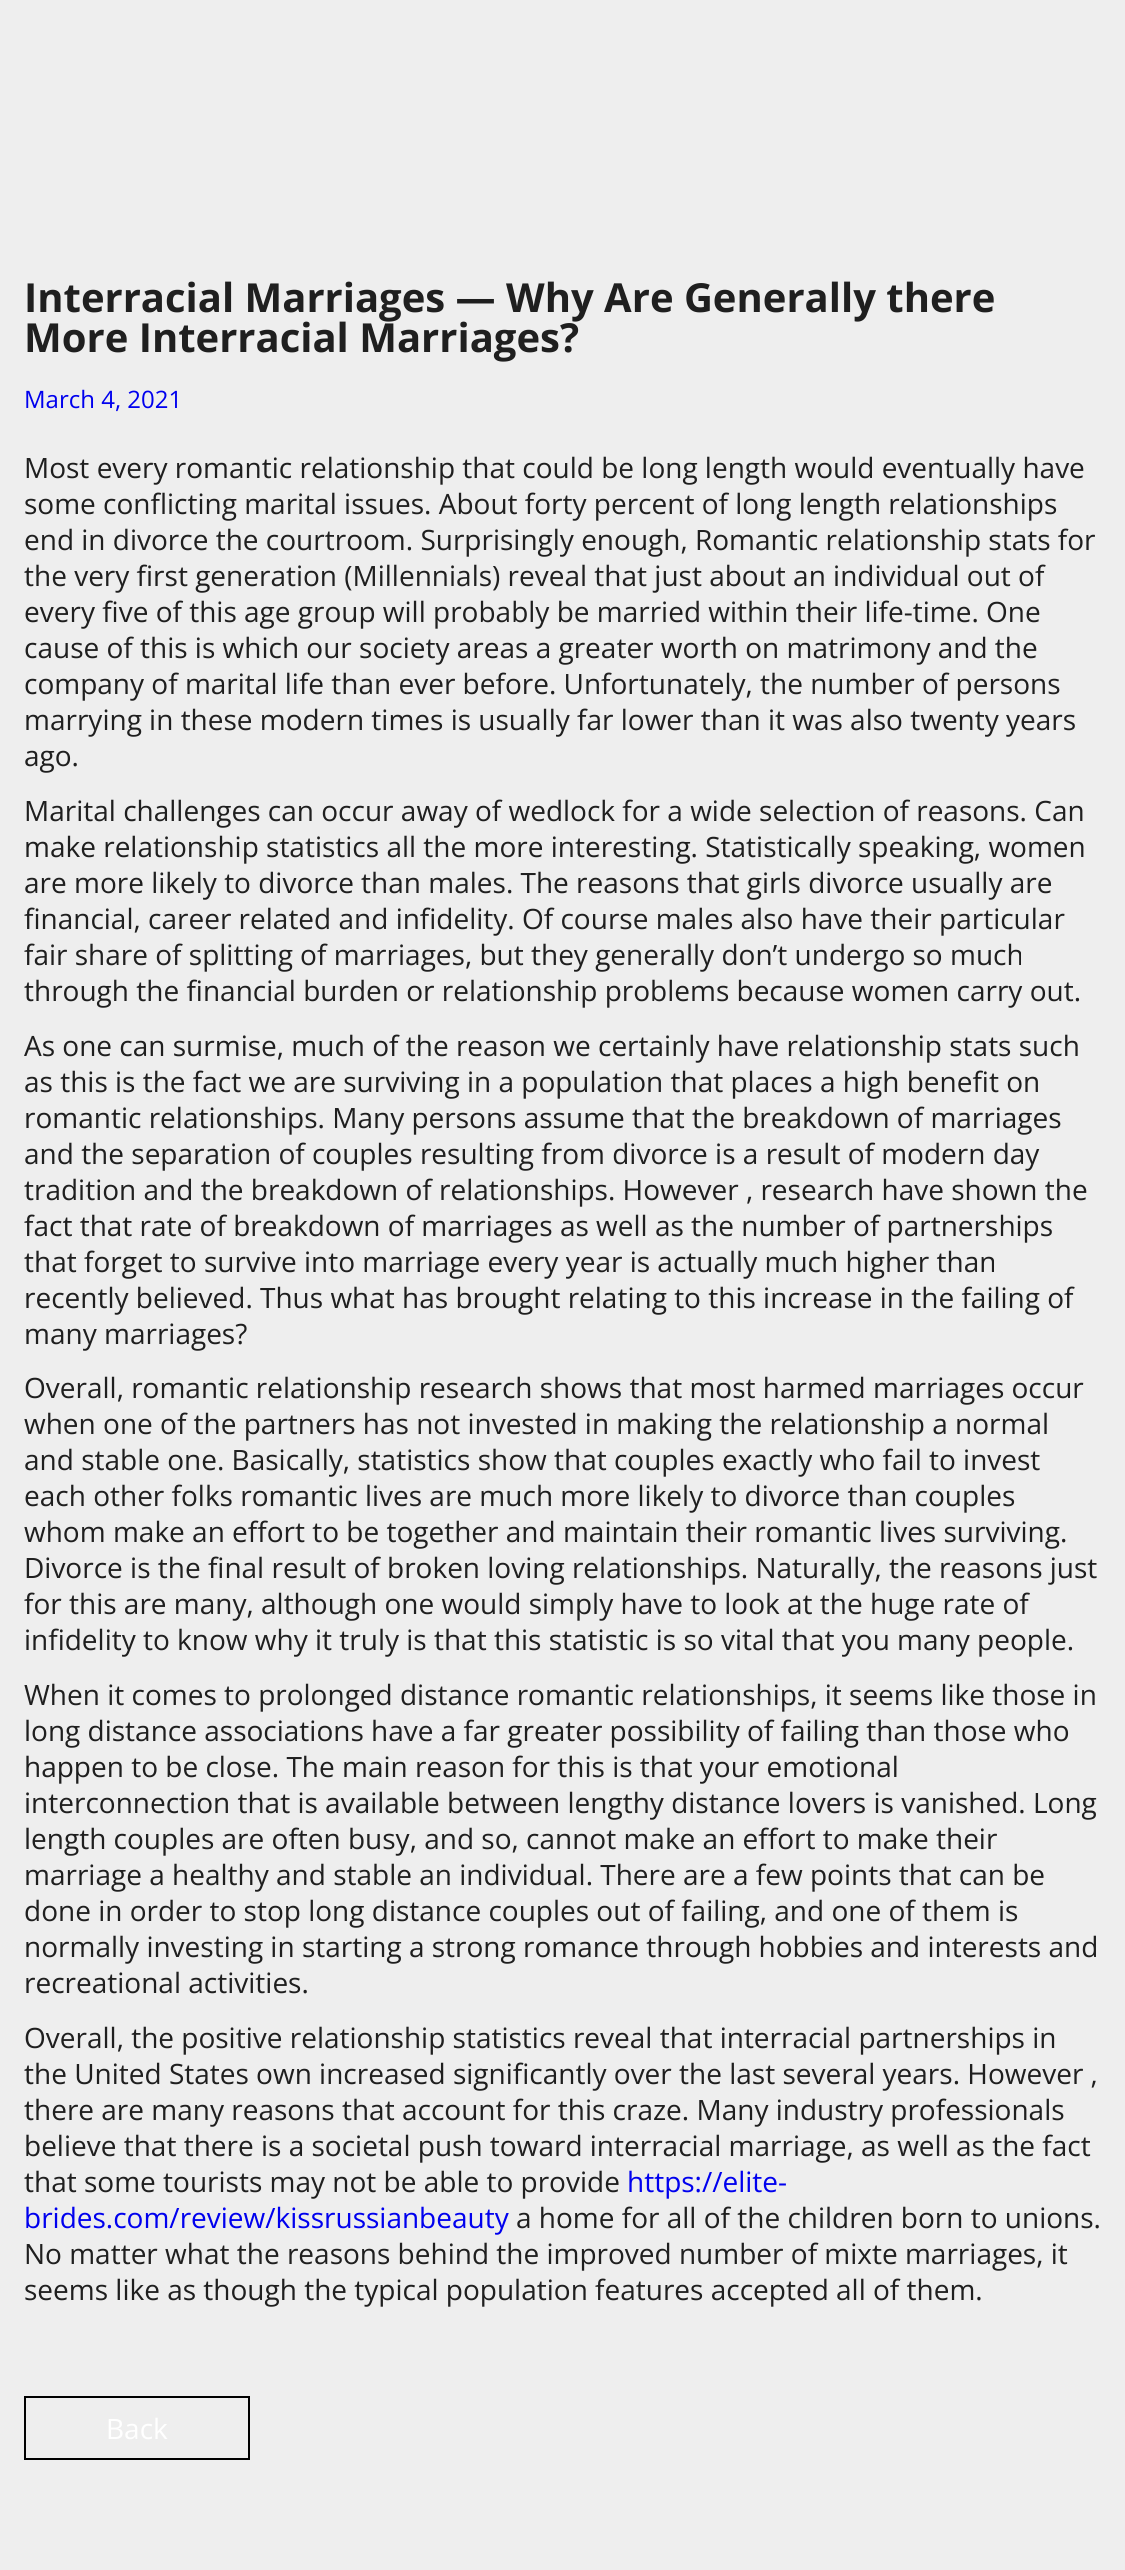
#include <cairo/cairo.h>
#include <math.h>
#include <stddef.h>


static void draw(cairo_t *cr) {
  cairo_set_source_rgb(cr, 238 / 255.0, 238 / 255.0, 238 / 255.0);
  cairo_paint(cr);
  cairo_rectangle(cr, 25, 2397, 224, 62);
  cairo_set_source_rgb(cr, 0, 0, 0);
  cairo_stroke(cr);
  cairo_select_font_face(cr, "Open Sans", CAIRO_FONT_SLANT_NORMAL, CAIRO_FONT_WEIGHT_BOLD);
  cairo_set_font_size(cr, 40);
  cairo_set_source_rgb(cr, 31 / 255.0, 31 / 255.0, 31 / 255.0);
  cairo_move_to(cr, 24, 312);
  cairo_show_text(cr, "Interracial Marriages — Why Are Generally there");
  cairo_move_to(cr, 24, 352);
  cairo_show_text(cr, "More Interracial Marriages?");
  cairo_select_font_face(cr, "Open Sans", CAIRO_FONT_SLANT_NORMAL, CAIRO_FONT_WEIGHT_NORMAL);
  cairo_set_font_size(cr, 24);
  cairo_set_source_rgb(cr, 0, 0, 238 / 255.0);
  cairo_move_to(cr, 24, 408);
  cairo_show_text(cr, "March 4, 2021");
  cairo_set_font_size(cr, 28);
  cairo_set_source_rgb(cr, 31 / 255.0, 31 / 255.0, 31 / 255.0);
  cairo_move_to(cr, 24, 478);
  cairo_show_text(cr, "Most every romantic relationship that could be long length would eventually have");
  cairo_move_to(cr, 24, 514);
  cairo_show_text(cr, "some conflicting marital issues. About forty percent of long length relationships");
  cairo_move_to(cr, 24, 550);
  cairo_show_text(cr, "end in divorce the courtroom. Surprisingly enough, Romantic relationship stats for");
  cairo_move_to(cr, 24, 586);
  cairo_show_text(cr, "the very first generation (Millennials) reveal that just about an individual out of");
  cairo_move_to(cr, 24, 622);
  cairo_show_text(cr, "every five of this age group will probably be married within their life-time. One");
  cairo_move_to(cr, 24, 658);
  cairo_show_text(cr, "cause of this is which our society areas a greater worth on matrimony and the");
  cairo_move_to(cr, 24, 694);
  cairo_show_text(cr, "company of marital life than ever before. Unfortunately, the number of persons");
  cairo_move_to(cr, 24, 730);
  cairo_show_text(cr, "marrying in these modern times is usually far lower than it was also twenty years");
  cairo_move_to(cr, 24, 766);
  cairo_show_text(cr, "ago.");
  cairo_move_to(cr, 24, 821);
  cairo_show_text(cr, "Marital challenges can occur away of wedlock for a wide selection of reasons. Can");
  cairo_move_to(cr, 24, 857);
  cairo_show_text(cr, "make relationship statistics all the more interesting. Statistically speaking, women");
  cairo_move_to(cr, 24, 893);
  cairo_show_text(cr, "are more likely to divorce than males. The reasons that girls divorce usually are");
  cairo_move_to(cr, 24, 929);
  cairo_show_text(cr, "financial, career related and infidelity. Of course males also have their particular");
  cairo_move_to(cr, 24, 965);
  cairo_show_text(cr, "fair share of splitting of marriages, but they generally don’t undergo so much");
  cairo_move_to(cr, 24, 1001);
  cairo_show_text(cr, "through the financial burden or relationship problems because women carry out.");
  cairo_move_to(cr, 24, 1056);
  cairo_show_text(cr, "As one can surmise, much of the reason we certainly have relationship stats such");
  cairo_move_to(cr, 24, 1092);
  cairo_show_text(cr, "as this is the fact we are surviving in a population that places a high benefit on");
  cairo_move_to(cr, 24, 1128);
  cairo_show_text(cr, "romantic relationships. Many persons assume that the breakdown of marriages");
  cairo_move_to(cr, 24, 1164);
  cairo_show_text(cr, "and the separation of couples resulting from divorce is a result of modern day");
  cairo_move_to(cr, 24, 1200);
  cairo_show_text(cr, "tradition and the breakdown of relationships. However , research have shown the");
  cairo_move_to(cr, 24, 1236);
  cairo_show_text(cr, "fact that rate of breakdown of marriages as well as the number of partnerships");
  cairo_move_to(cr, 24, 1272);
  cairo_show_text(cr, "that forget to survive into marriage every year is actually much higher than");
  cairo_move_to(cr, 24, 1308);
  cairo_show_text(cr, "recently believed. Thus what has brought relating to this increase in the failing of");
  cairo_move_to(cr, 24, 1344);
  cairo_show_text(cr, "many marriages?");
  cairo_move_to(cr, 24, 1398);
  cairo_show_text(cr, "Overall, romantic relationship research shows that most harmed marriages occur");
  cairo_move_to(cr, 24, 1434);
  cairo_show_text(cr, "when one of the partners has not invested in making the relationship a normal");
  cairo_move_to(cr, 24, 1470);
  cairo_show_text(cr, "and stable one. Basically, statistics show that couples exactly who fail to invest");
  cairo_move_to(cr, 24, 1506);
  cairo_show_text(cr, "each other folks romantic lives are much more likely to divorce than couples");
  cairo_move_to(cr, 24, 1542);
  cairo_show_text(cr, "whom make an effort to be together and maintain their romantic lives surviving.");
  cairo_move_to(cr, 24, 1578);
  cairo_show_text(cr, "Divorce is the final result of broken loving relationships. Naturally, the reasons just");
  cairo_move_to(cr, 24, 1614);
  cairo_show_text(cr, "for this are many, although one would simply have to look at the huge rate of");
  cairo_move_to(cr, 24, 1650);
  cairo_show_text(cr, "infidelity to know why it truly is that this statistic is so vital that you many people.");
  cairo_move_to(cr, 24, 1705);
  cairo_show_text(cr, "When it comes to prolonged distance romantic relationships, it seems like those in");
  cairo_move_to(cr, 24, 1741);
  cairo_show_text(cr, "long distance associations have a far greater possibility of failing than those who");
  cairo_move_to(cr, 24, 1777);
  cairo_show_text(cr, "happen to be close. The main reason for this is that your emotional");
  cairo_move_to(cr, 24, 1813);
  cairo_show_text(cr, "interconnection that is available between lengthy distance lovers is vanished. Long");
  cairo_move_to(cr, 24, 1849);
  cairo_show_text(cr, "length couples are often busy, and so, cannot make an effort to make their");
  cairo_move_to(cr, 24, 1885);
  cairo_show_text(cr, "marriage a healthy and stable an individual. There are a few points that can be");
  cairo_move_to(cr, 24, 1921);
  cairo_show_text(cr, "done in order to stop long distance couples out of failing, and one of them is");
  cairo_move_to(cr, 24, 1957);
  cairo_show_text(cr, "normally investing in starting a strong romance through hobbies and interests and");
  cairo_move_to(cr, 24, 1993);
  cairo_show_text(cr, "recreational activities.");
  cairo_move_to(cr, 24, 2048);
  cairo_show_text(cr, "Overall, the positive relationship statistics reveal that interracial partnerships in");
  cairo_move_to(cr, 24, 2084);
  cairo_show_text(cr, "the United States own increased significantly over the last several years. However ,");
  cairo_move_to(cr, 24, 2120);
  cairo_show_text(cr, "there are many reasons that account for this craze. Many industry professionals");
  cairo_move_to(cr, 24, 2156);
  cairo_show_text(cr, "believe that there is a societal push toward interracial marriage, as well as the fact");
  cairo_move_to(cr, 24, 2192);
  cairo_show_text(cr, "that some tourists may not be able to provide");
  cairo_set_source_rgb(cr, 0, 0, 238 / 255.0);
  cairo_move_to(cr, 627, 2192);
  cairo_show_text(cr, "https://elite-");
  cairo_move_to(cr, 24, 2228);
  cairo_show_text(cr, "brides.com/review/kissrussianbeauty");
  cairo_set_source_rgb(cr, 31 / 255.0, 31 / 255.0, 31 / 255.0);
  cairo_move_to(cr, 516, 2228);
  cairo_show_text(cr, "a home for all of the children born to unions.");
  cairo_move_to(cr, 24, 2264);
  cairo_show_text(cr, "No matter what the reasons behind the improved number of mixte marriages, it");
  cairo_move_to(cr, 24, 2300);
  cairo_show_text(cr, "seems like as though the typical population features accepted all of them.");
  cairo_set_source_rgb(cr, 1, 1, 1);
  cairo_move_to(cr, 106, 2439);
  cairo_show_text(cr, "Back");
}

int main(void) {
  cairo_surface_t *surface = cairo_image_surface_create(CAIRO_FORMAT_RGB24, 1125, 2570);
  cairo_t *cr = cairo_create(surface);
  cairo_font_options_t *options = cairo_font_options_create();
  cairo_font_options_set_hint_metrics(options, CAIRO_HINT_METRICS_OFF);
  cairo_font_options_set_hint_style(options, CAIRO_HINT_STYLE_NONE);
  cairo_set_font_options(cr, options);
  cairo_set_miter_limit(cr, 4);
  draw(cr);
  cairo_surface_write_to_png(surface, "out.png");
  cairo_font_options_destroy(options);
  cairo_destroy(cr);
  cairo_surface_destroy(surface);
  return 0;
}
